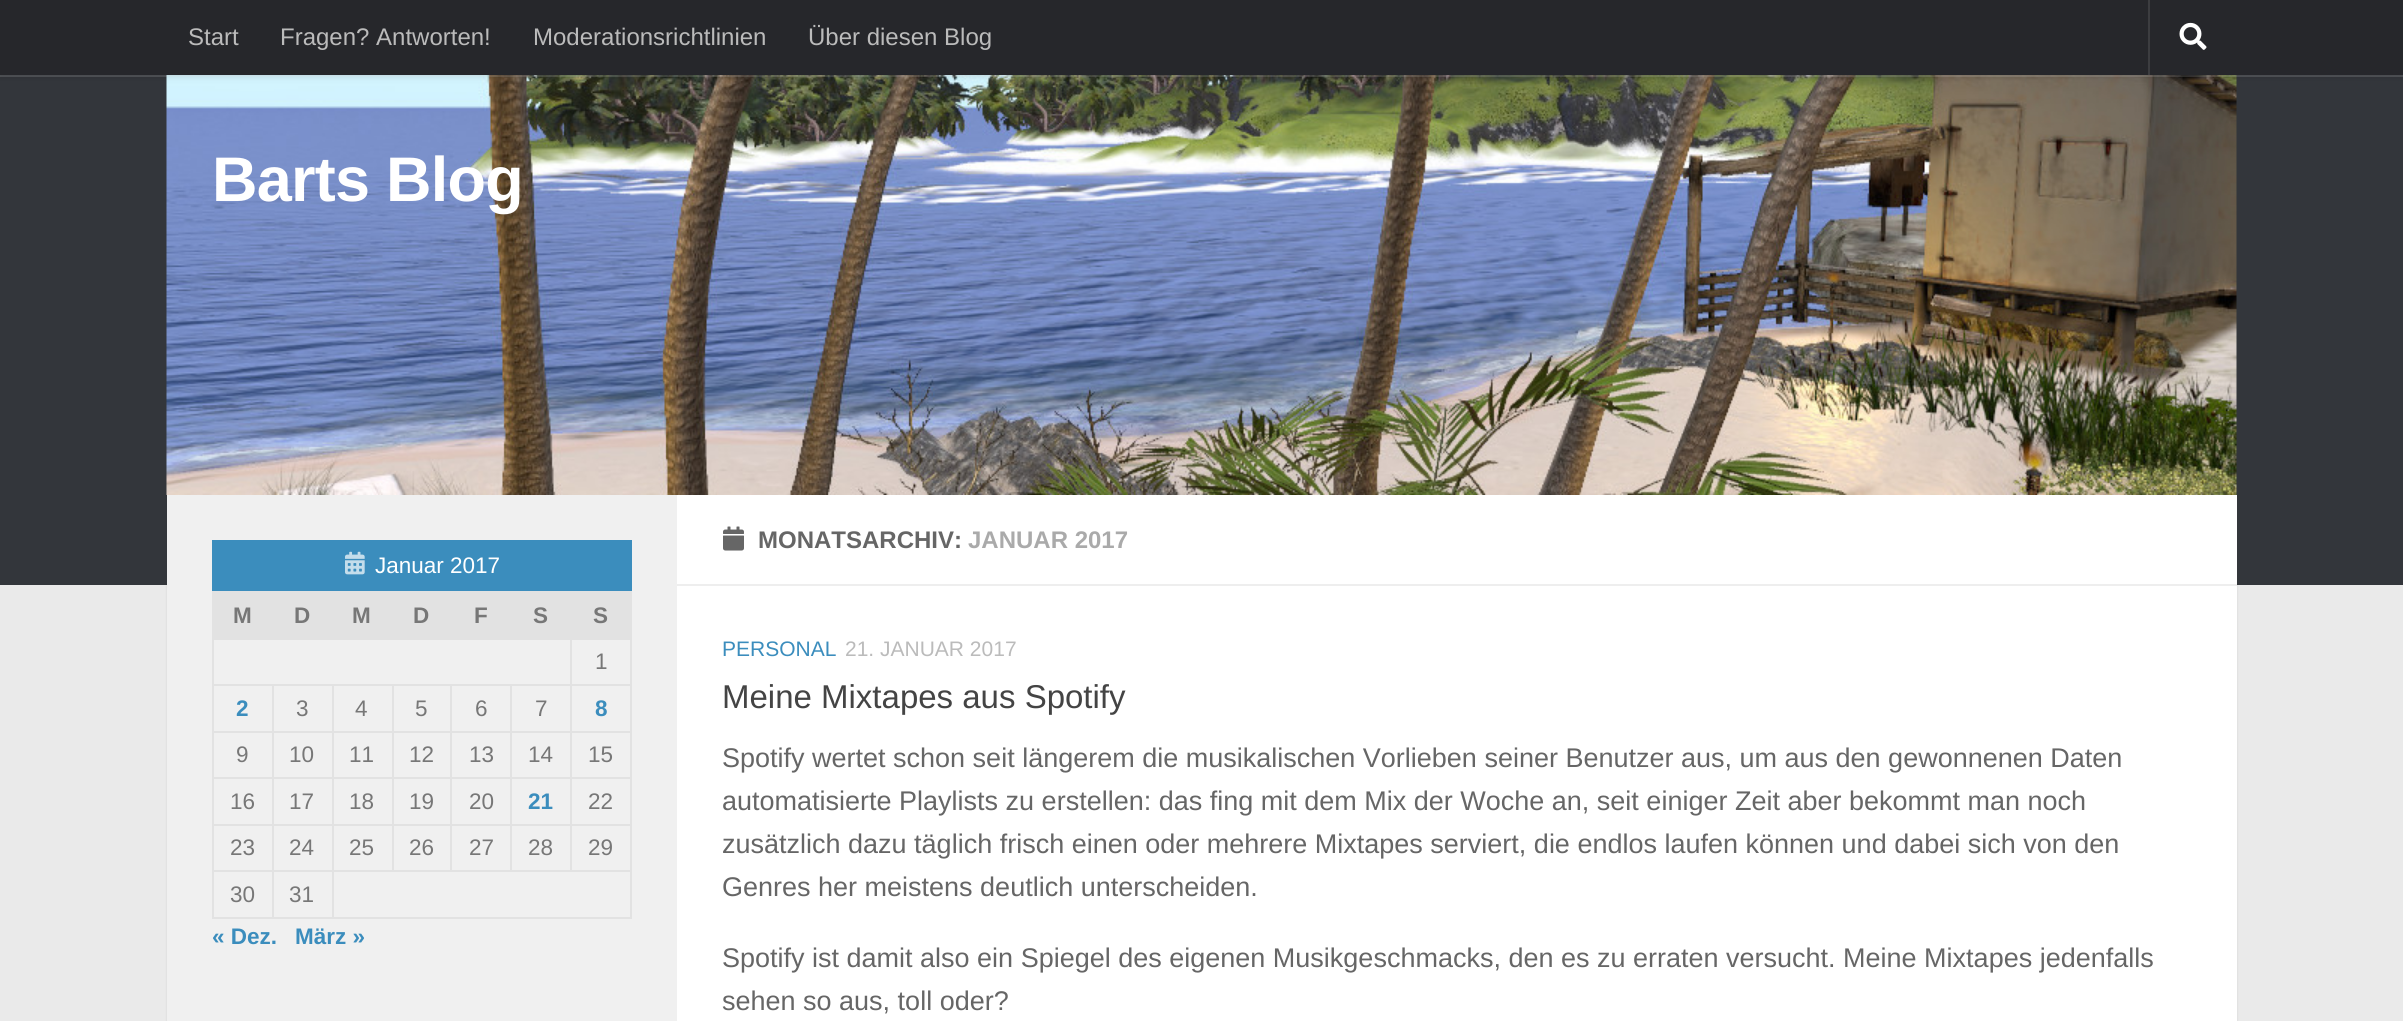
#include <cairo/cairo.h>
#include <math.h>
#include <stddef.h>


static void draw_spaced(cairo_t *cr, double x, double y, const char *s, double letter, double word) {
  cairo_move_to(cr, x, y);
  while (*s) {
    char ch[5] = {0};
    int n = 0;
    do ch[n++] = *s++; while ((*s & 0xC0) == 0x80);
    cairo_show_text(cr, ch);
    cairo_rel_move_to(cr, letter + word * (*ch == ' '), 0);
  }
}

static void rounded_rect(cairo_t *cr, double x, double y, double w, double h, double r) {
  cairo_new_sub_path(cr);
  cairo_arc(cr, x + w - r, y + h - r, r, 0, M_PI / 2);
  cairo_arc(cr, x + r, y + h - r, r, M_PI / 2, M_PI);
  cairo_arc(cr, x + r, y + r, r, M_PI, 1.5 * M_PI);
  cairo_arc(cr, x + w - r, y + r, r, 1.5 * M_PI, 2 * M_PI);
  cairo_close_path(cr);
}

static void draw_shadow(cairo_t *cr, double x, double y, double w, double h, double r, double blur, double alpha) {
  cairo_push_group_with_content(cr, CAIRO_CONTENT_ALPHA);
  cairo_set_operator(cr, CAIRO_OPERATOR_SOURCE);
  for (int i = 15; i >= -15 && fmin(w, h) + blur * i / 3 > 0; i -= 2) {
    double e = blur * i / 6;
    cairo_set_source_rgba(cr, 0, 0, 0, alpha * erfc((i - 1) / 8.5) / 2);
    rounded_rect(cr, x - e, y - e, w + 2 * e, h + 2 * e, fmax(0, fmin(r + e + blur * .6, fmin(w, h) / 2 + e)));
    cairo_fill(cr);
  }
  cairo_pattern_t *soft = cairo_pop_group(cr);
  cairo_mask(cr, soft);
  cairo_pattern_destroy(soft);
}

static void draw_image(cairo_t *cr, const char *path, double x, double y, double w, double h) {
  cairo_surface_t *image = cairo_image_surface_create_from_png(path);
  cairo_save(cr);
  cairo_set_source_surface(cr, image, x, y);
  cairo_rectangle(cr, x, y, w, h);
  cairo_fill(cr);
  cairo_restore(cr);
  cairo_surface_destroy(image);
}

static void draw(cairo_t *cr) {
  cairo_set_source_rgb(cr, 234 / 255.0, 234 / 255.0, 234 / 255.0);
  cairo_paint(cr);
  cairo_set_source_rgb(cr, 0, 0, 0);
  draw_shadow(cr, 167, 497, 2070, 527, 0, 1, 0.1);
  cairo_set_source_rgb(cr, 51 / 255.0, 54 / 255.0, 59 / 255.0);
  cairo_rectangle(cr, 0, 75, 2403, 510);
  cairo_fill(cr);
  draw_image(cr, "images/2.png", 166, 75, 2071, 420);
  cairo_set_source_rgba(cr, 1, 1, 1, 0.15);
  cairo_rectangle(cr, 0, 75, 2403, 2);
  cairo_fill(cr);
  cairo_set_source_rgb(cr, 0, 0, 0);
  draw_shadow(cr, 0, 0, 2403, 75, 0, 4, 0.2);
  cairo_set_source_rgb(cr, 38 / 255.0, 39 / 255.0, 43 / 255.0);
  cairo_rectangle(cr, 0, 0, 2403, 75);
  cairo_fill(cr);
  cairo_set_source_rgb(cr, 60 / 255.0, 61 / 255.0, 64 / 255.0);
  cairo_rectangle(cr, 2148, 0, 2, 75);
  cairo_fill(cr);
  draw_image(cr, "images/1.png", 2179, 22, 28, 28);
  cairo_set_source_rgb(cr, 1, 1, 1);
  cairo_rectangle(cr, 677, 495, 1560, 526);
  cairo_fill(cr);
  cairo_set_source_rgb(cr, 240 / 255.0, 240 / 255.0, 240 / 255.0);
  cairo_rectangle(cr, 167, 495, 510, 526);
  cairo_fill(cr);
  cairo_set_source_rgb(cr, 59 / 255.0, 141 / 255.0, 189 / 255.0);
  cairo_rectangle(cr, 212, 540, 420, 51);
  cairo_fill(cr);
  draw_image(cr, "images/3.png", 345, 551, 20, 24);
  cairo_set_source_rgb(cr, 226 / 255.0, 226 / 255.0, 226 / 255.0);
  cairo_rectangle(cr, 214, 593, 418, 45);
  cairo_fill(cr);
  cairo_rectangle(cr, 212, 591, 420, 2);
  cairo_fill(cr);
  cairo_rectangle(cr, 570, 638, 62, 2);
  cairo_fill(cr);
  cairo_rectangle(cr, 570, 684, 62, 2);
  cairo_fill(cr);
  cairo_rectangle(cr, 570, 731, 62, 2);
  cairo_fill(cr);
  cairo_rectangle(cr, 570, 777, 62, 2);
  cairo_fill(cr);
  cairo_rectangle(cr, 570, 824, 62, 2);
  cairo_fill(cr);
  cairo_rectangle(cr, 332, 870, 300, 2);
  cairo_fill(cr);
  cairo_rectangle(cr, 570, 824, 2, 48);
  cairo_fill(cr);
  cairo_rectangle(cr, 510, 824, 62, 2);
  cairo_fill(cr);
  cairo_rectangle(cr, 570, 777, 2, 48);
  cairo_fill(cr);
  cairo_rectangle(cr, 510, 777, 62, 2);
  cairo_fill(cr);
  cairo_rectangle(cr, 570, 731, 2, 48);
  cairo_fill(cr);
  cairo_rectangle(cr, 510, 731, 62, 2);
  cairo_fill(cr);
  cairo_rectangle(cr, 570, 684, 2, 48);
  cairo_fill(cr);
  cairo_rectangle(cr, 510, 684, 62, 2);
  cairo_fill(cr);
  cairo_rectangle(cr, 570, 638, 2, 48);
  cairo_fill(cr);
  cairo_rectangle(cr, 212, 638, 360, 2);
  cairo_fill(cr);
  cairo_rectangle(cr, 510, 824, 2, 48);
  cairo_fill(cr);
  cairo_rectangle(cr, 450, 824, 62, 2);
  cairo_fill(cr);
  cairo_rectangle(cr, 510, 777, 2, 48);
  cairo_fill(cr);
  cairo_rectangle(cr, 450, 777, 62, 2);
  cairo_fill(cr);
  cairo_rectangle(cr, 510, 731, 2, 48);
  cairo_fill(cr);
  cairo_rectangle(cr, 450, 731, 62, 2);
  cairo_fill(cr);
  cairo_rectangle(cr, 510, 684, 2, 48);
  cairo_fill(cr);
  cairo_rectangle(cr, 450, 684, 62, 2);
  cairo_fill(cr);
  cairo_rectangle(cr, 450, 824, 2, 48);
  cairo_fill(cr);
  cairo_rectangle(cr, 392, 824, 60, 2);
  cairo_fill(cr);
  cairo_rectangle(cr, 450, 777, 2, 48);
  cairo_fill(cr);
  cairo_rectangle(cr, 392, 777, 60, 2);
  cairo_fill(cr);
  cairo_rectangle(cr, 450, 731, 2, 48);
  cairo_fill(cr);
  cairo_rectangle(cr, 392, 731, 60, 2);
  cairo_fill(cr);
  cairo_rectangle(cr, 450, 684, 2, 48);
  cairo_fill(cr);
  cairo_rectangle(cr, 392, 684, 60, 2);
  cairo_fill(cr);
  cairo_rectangle(cr, 392, 824, 2, 48);
  cairo_fill(cr);
  cairo_rectangle(cr, 332, 824, 61, 2);
  cairo_fill(cr);
  cairo_rectangle(cr, 392, 777, 2, 48);
  cairo_fill(cr);
  cairo_rectangle(cr, 332, 777, 61, 2);
  cairo_fill(cr);
  cairo_rectangle(cr, 392, 731, 2, 48);
  cairo_fill(cr);
  cairo_rectangle(cr, 332, 731, 61, 2);
  cairo_fill(cr);
  cairo_rectangle(cr, 392, 684, 2, 48);
  cairo_fill(cr);
  cairo_rectangle(cr, 332, 684, 61, 2);
  cairo_fill(cr);
  cairo_rectangle(cr, 630, 870, 2, 48);
  cairo_fill(cr);
  cairo_rectangle(cr, 332, 917, 300, 2);
  cairo_fill(cr);
  cairo_rectangle(cr, 332, 870, 2, 48);
  cairo_fill(cr);
  cairo_rectangle(cr, 272, 870, 61, 2);
  cairo_fill(cr);
  cairo_rectangle(cr, 332, 824, 2, 48);
  cairo_fill(cr);
  cairo_rectangle(cr, 272, 824, 61, 2);
  cairo_fill(cr);
  cairo_rectangle(cr, 332, 777, 2, 48);
  cairo_fill(cr);
  cairo_rectangle(cr, 272, 777, 61, 2);
  cairo_fill(cr);
  cairo_rectangle(cr, 332, 731, 2, 48);
  cairo_fill(cr);
  cairo_rectangle(cr, 272, 731, 61, 2);
  cairo_fill(cr);
  cairo_rectangle(cr, 332, 684, 2, 48);
  cairo_fill(cr);
  cairo_rectangle(cr, 272, 684, 61, 2);
  cairo_fill(cr);
  cairo_rectangle(cr, 272, 917, 61, 2);
  cairo_fill(cr);
  cairo_rectangle(cr, 272, 870, 2, 48);
  cairo_fill(cr);
  cairo_rectangle(cr, 212, 870, 61, 2);
  cairo_fill(cr);
  cairo_rectangle(cr, 272, 824, 2, 48);
  cairo_fill(cr);
  cairo_rectangle(cr, 212, 824, 61, 2);
  cairo_fill(cr);
  cairo_rectangle(cr, 272, 777, 2, 48);
  cairo_fill(cr);
  cairo_rectangle(cr, 212, 777, 61, 2);
  cairo_fill(cr);
  cairo_rectangle(cr, 272, 731, 2, 48);
  cairo_fill(cr);
  cairo_rectangle(cr, 212, 731, 61, 2);
  cairo_fill(cr);
  cairo_rectangle(cr, 272, 684, 2, 48);
  cairo_fill(cr);
  cairo_rectangle(cr, 212, 684, 61, 2);
  cairo_fill(cr);
  cairo_rectangle(cr, 212, 917, 61, 2);
  cairo_fill(cr);
  cairo_rectangle(cr, 212, 870, 2, 48);
  cairo_fill(cr);
  cairo_rectangle(cr, 212, 824, 2, 48);
  cairo_fill(cr);
  cairo_rectangle(cr, 212, 777, 2, 48);
  cairo_fill(cr);
  cairo_rectangle(cr, 212, 731, 2, 48);
  cairo_fill(cr);
  cairo_rectangle(cr, 212, 684, 2, 48);
  cairo_fill(cr);
  cairo_rectangle(cr, 212, 638, 2, 48);
  cairo_fill(cr);
  cairo_rectangle(cr, 212, 591, 2, 48);
  cairo_fill(cr);
  cairo_rectangle(cr, 630, 824, 2, 48);
  cairo_fill(cr);
  cairo_rectangle(cr, 630, 777, 2, 48);
  cairo_fill(cr);
  cairo_rectangle(cr, 630, 731, 2, 48);
  cairo_fill(cr);
  cairo_rectangle(cr, 630, 684, 2, 48);
  cairo_fill(cr);
  cairo_rectangle(cr, 630, 638, 2, 48);
  cairo_fill(cr);
  cairo_set_source_rgb(cr, 238 / 255.0, 238 / 255.0, 238 / 255.0);
  cairo_rectangle(cr, 677, 584, 1560, 2);
  cairo_fill(cr);
  draw_image(cr, "images/4.png", 723, 526, 21, 25);
  cairo_select_font_face(cr, "Liberation Sans", CAIRO_FONT_SLANT_NORMAL, CAIRO_FONT_WEIGHT_NORMAL);
  cairo_set_font_size(cr, 24);
  cairo_set_source_rgb(cr, 187 / 255.0, 187 / 255.0, 187 / 255.0);
  cairo_move_to(cr, 188, 45);
  cairo_show_text(cr, "Start");
  cairo_move_to(cr, 280, 45);
  cairo_show_text(cr, "Fragen? Antworten!");
  cairo_move_to(cr, 533, 45);
  cairo_show_text(cr, "Moderationsrichtlinien");
  cairo_move_to(cr, 808, 45);
  cairo_show_text(cr, "Über diesen Blog");
  cairo_select_font_face(cr, "Liberation Sans", CAIRO_FONT_SLANT_NORMAL, CAIRO_FONT_WEIGHT_BOLD);
  cairo_set_font_size(cr, 63);
  cairo_set_source_rgb(cr, 1, 1, 1);
  draw_spaced(cr, 212, 201, "Barts Blog", -0.75, 0);
  cairo_select_font_face(cr, "Liberation Sans", CAIRO_FONT_SLANT_NORMAL, CAIRO_FONT_WEIGHT_NORMAL);
  cairo_set_font_size(cr, 22.5);
  cairo_move_to(cr, 375, 573);
  cairo_show_text(cr, "Januar 2017");
  cairo_select_font_face(cr, "Liberation Sans", CAIRO_FONT_SLANT_NORMAL, CAIRO_FONT_WEIGHT_BOLD);
  cairo_set_source_rgb(cr, 119 / 255.0, 119 / 255.0, 119 / 255.0);
  cairo_move_to(cr, 233, 623);
  cairo_show_text(cr, "M");
  cairo_move_to(cr, 294, 623);
  cairo_show_text(cr, "D");
  cairo_move_to(cr, 352, 623);
  cairo_show_text(cr, "M");
  cairo_move_to(cr, 413, 623);
  cairo_show_text(cr, "D");
  cairo_move_to(cr, 474, 623);
  cairo_show_text(cr, "F");
  cairo_move_to(cr, 533, 623);
  cairo_show_text(cr, "S");
  cairo_move_to(cr, 593, 623);
  cairo_show_text(cr, "S");
  cairo_select_font_face(cr, "Liberation Sans", CAIRO_FONT_SLANT_NORMAL, CAIRO_FONT_WEIGHT_NORMAL);
  cairo_move_to(cr, 595, 669);
  cairo_show_text(cr, "1");
  cairo_select_font_face(cr, "Liberation Sans", CAIRO_FONT_SLANT_NORMAL, CAIRO_FONT_WEIGHT_BOLD);
  cairo_set_source_rgb(cr, 59 / 255.0, 141 / 255.0, 189 / 255.0);
  cairo_move_to(cr, 236, 716);
  cairo_show_text(cr, "2");
  cairo_select_font_face(cr, "Liberation Sans", CAIRO_FONT_SLANT_NORMAL, CAIRO_FONT_WEIGHT_NORMAL);
  cairo_set_source_rgb(cr, 119 / 255.0, 119 / 255.0, 119 / 255.0);
  cairo_move_to(cr, 296, 716);
  cairo_show_text(cr, "3");
  cairo_move_to(cr, 355, 716);
  cairo_show_text(cr, "4");
  cairo_move_to(cr, 415, 716);
  cairo_show_text(cr, "5");
  cairo_move_to(cr, 475, 716);
  cairo_show_text(cr, "6");
  cairo_move_to(cr, 535, 716);
  cairo_show_text(cr, "7");
  cairo_select_font_face(cr, "Liberation Sans", CAIRO_FONT_SLANT_NORMAL, CAIRO_FONT_WEIGHT_BOLD);
  cairo_set_source_rgb(cr, 59 / 255.0, 141 / 255.0, 189 / 255.0);
  cairo_move_to(cr, 595, 716);
  cairo_show_text(cr, "8");
  cairo_select_font_face(cr, "Liberation Sans", CAIRO_FONT_SLANT_NORMAL, CAIRO_FONT_WEIGHT_NORMAL);
  cairo_set_source_rgb(cr, 119 / 255.0, 119 / 255.0, 119 / 255.0);
  cairo_move_to(cr, 236, 762);
  cairo_show_text(cr, "9");
  cairo_move_to(cr, 289, 762);
  cairo_show_text(cr, "10");
  cairo_move_to(cr, 349, 762);
  cairo_show_text(cr, "11");
  cairo_move_to(cr, 409, 762);
  cairo_show_text(cr, "12");
  cairo_move_to(cr, 469, 762);
  cairo_show_text(cr, "13");
  cairo_move_to(cr, 528, 762);
  cairo_show_text(cr, "14");
  cairo_move_to(cr, 588, 762);
  cairo_show_text(cr, "15");
  cairo_move_to(cr, 230, 809);
  cairo_show_text(cr, "16");
  cairo_move_to(cr, 289, 809);
  cairo_show_text(cr, "17");
  cairo_move_to(cr, 349, 809);
  cairo_show_text(cr, "18");
  cairo_move_to(cr, 409, 809);
  cairo_show_text(cr, "19");
  cairo_move_to(cr, 469, 809);
  cairo_show_text(cr, "20");
  cairo_select_font_face(cr, "Liberation Sans", CAIRO_FONT_SLANT_NORMAL, CAIRO_FONT_WEIGHT_BOLD);
  cairo_set_source_rgb(cr, 59 / 255.0, 141 / 255.0, 189 / 255.0);
  cairo_move_to(cr, 528, 809);
  cairo_show_text(cr, "21");
  cairo_select_font_face(cr, "Liberation Sans", CAIRO_FONT_SLANT_NORMAL, CAIRO_FONT_WEIGHT_NORMAL);
  cairo_set_source_rgb(cr, 119 / 255.0, 119 / 255.0, 119 / 255.0);
  cairo_move_to(cr, 588, 809);
  cairo_show_text(cr, "22");
  cairo_move_to(cr, 230, 855);
  cairo_show_text(cr, "23");
  cairo_move_to(cr, 289, 855);
  cairo_show_text(cr, "24");
  cairo_move_to(cr, 349, 855);
  cairo_show_text(cr, "25");
  cairo_move_to(cr, 409, 855);
  cairo_show_text(cr, "26");
  cairo_move_to(cr, 469, 855);
  cairo_show_text(cr, "27");
  cairo_move_to(cr, 528, 855);
  cairo_show_text(cr, "28");
  cairo_move_to(cr, 588, 855);
  cairo_show_text(cr, "29");
  cairo_move_to(cr, 230, 902);
  cairo_show_text(cr, "30");
  cairo_move_to(cr, 289, 902);
  cairo_show_text(cr, "31");
  cairo_select_font_face(cr, "Liberation Sans", CAIRO_FONT_SLANT_NORMAL, CAIRO_FONT_WEIGHT_BOLD);
  cairo_set_source_rgb(cr, 59 / 255.0, 141 / 255.0, 189 / 255.0);
  cairo_move_to(cr, 212, 944);
  cairo_show_text(cr, "« Dez.");
  cairo_move_to(cr, 295, 944);
  cairo_show_text(cr, "März »");
  cairo_set_font_size(cr, 24);
  cairo_set_source_rgb(cr, 102 / 255.0, 102 / 255.0, 102 / 255.0);
  cairo_move_to(cr, 758, 548);
  cairo_show_text(cr, "MONATSARCHIV:");
  cairo_set_source_rgb(cr, 170 / 255.0, 170 / 255.0, 170 / 255.0);
  cairo_move_to(cr, 968, 548);
  cairo_show_text(cr, "JANUAR 2017");
  cairo_select_font_face(cr, "Liberation Sans", CAIRO_FONT_SLANT_NORMAL, CAIRO_FONT_WEIGHT_NORMAL);
  cairo_set_font_size(cr, 21);
  cairo_set_source_rgb(cr, 59 / 255.0, 141 / 255.0, 189 / 255.0);
  cairo_move_to(cr, 722, 656);
  cairo_show_text(cr, "PERSONAL");
  cairo_set_source_rgb(cr, 187 / 255.0, 187 / 255.0, 187 / 255.0);
  cairo_move_to(cr, 845, 656);
  cairo_show_text(cr, "21. JANUAR 2017");
  cairo_set_font_size(cr, 33);
  cairo_set_source_rgb(cr, 68 / 255.0, 68 / 255.0, 68 / 255.0);
  cairo_move_to(cr, 722, 708);
  cairo_show_text(cr, "Meine Mixtapes aus Spotify");
  cairo_set_font_size(cr, 27);
  cairo_set_source_rgb(cr, 102 / 255.0, 102 / 255.0, 102 / 255.0);
  cairo_move_to(cr, 722, 767);
  cairo_show_text(cr, "Spotify wertet schon seit längerem die musikalischen Vorlieben seiner Benutzer aus, um aus den gewonnenen Daten");
  cairo_move_to(cr, 722, 810);
  cairo_show_text(cr, "automatisierte Playlists zu erstellen: das fing mit dem Mix der Woche an, seit einiger Zeit aber bekommt man noch");
  cairo_move_to(cr, 722, 853);
  cairo_show_text(cr, "zusätzlich dazu täglich frisch einen oder mehrere Mixtapes serviert, die endlos laufen können und dabei sich von den");
  cairo_move_to(cr, 722, 896);
  cairo_show_text(cr, "Genres her meistens deutlich unterscheiden.");
  cairo_move_to(cr, 722, 967);
  cairo_show_text(cr, "Spotify ist damit also ein Spiegel des eigenen Musikgeschmacks, den es zu erraten versucht. Meine Mixtapes jedenfalls");
  cairo_move_to(cr, 722, 1010);
  cairo_show_text(cr, "sehen so aus, toll oder?");
}

int main(void) {
  cairo_surface_t *surface = cairo_image_surface_create(CAIRO_FORMAT_RGB24, 2403, 1021);
  cairo_t *cr = cairo_create(surface);
  cairo_font_options_t *options = cairo_font_options_create();
  cairo_font_options_set_hint_metrics(options, CAIRO_HINT_METRICS_OFF);
  cairo_font_options_set_hint_style(options, CAIRO_HINT_STYLE_NONE);
  cairo_set_font_options(cr, options);
  cairo_set_miter_limit(cr, 4);
  draw(cr);
  cairo_surface_write_to_png(surface, "out.png");
  cairo_font_options_destroy(options);
  cairo_destroy(cr);
  cairo_surface_destroy(surface);
  return 0;
}
